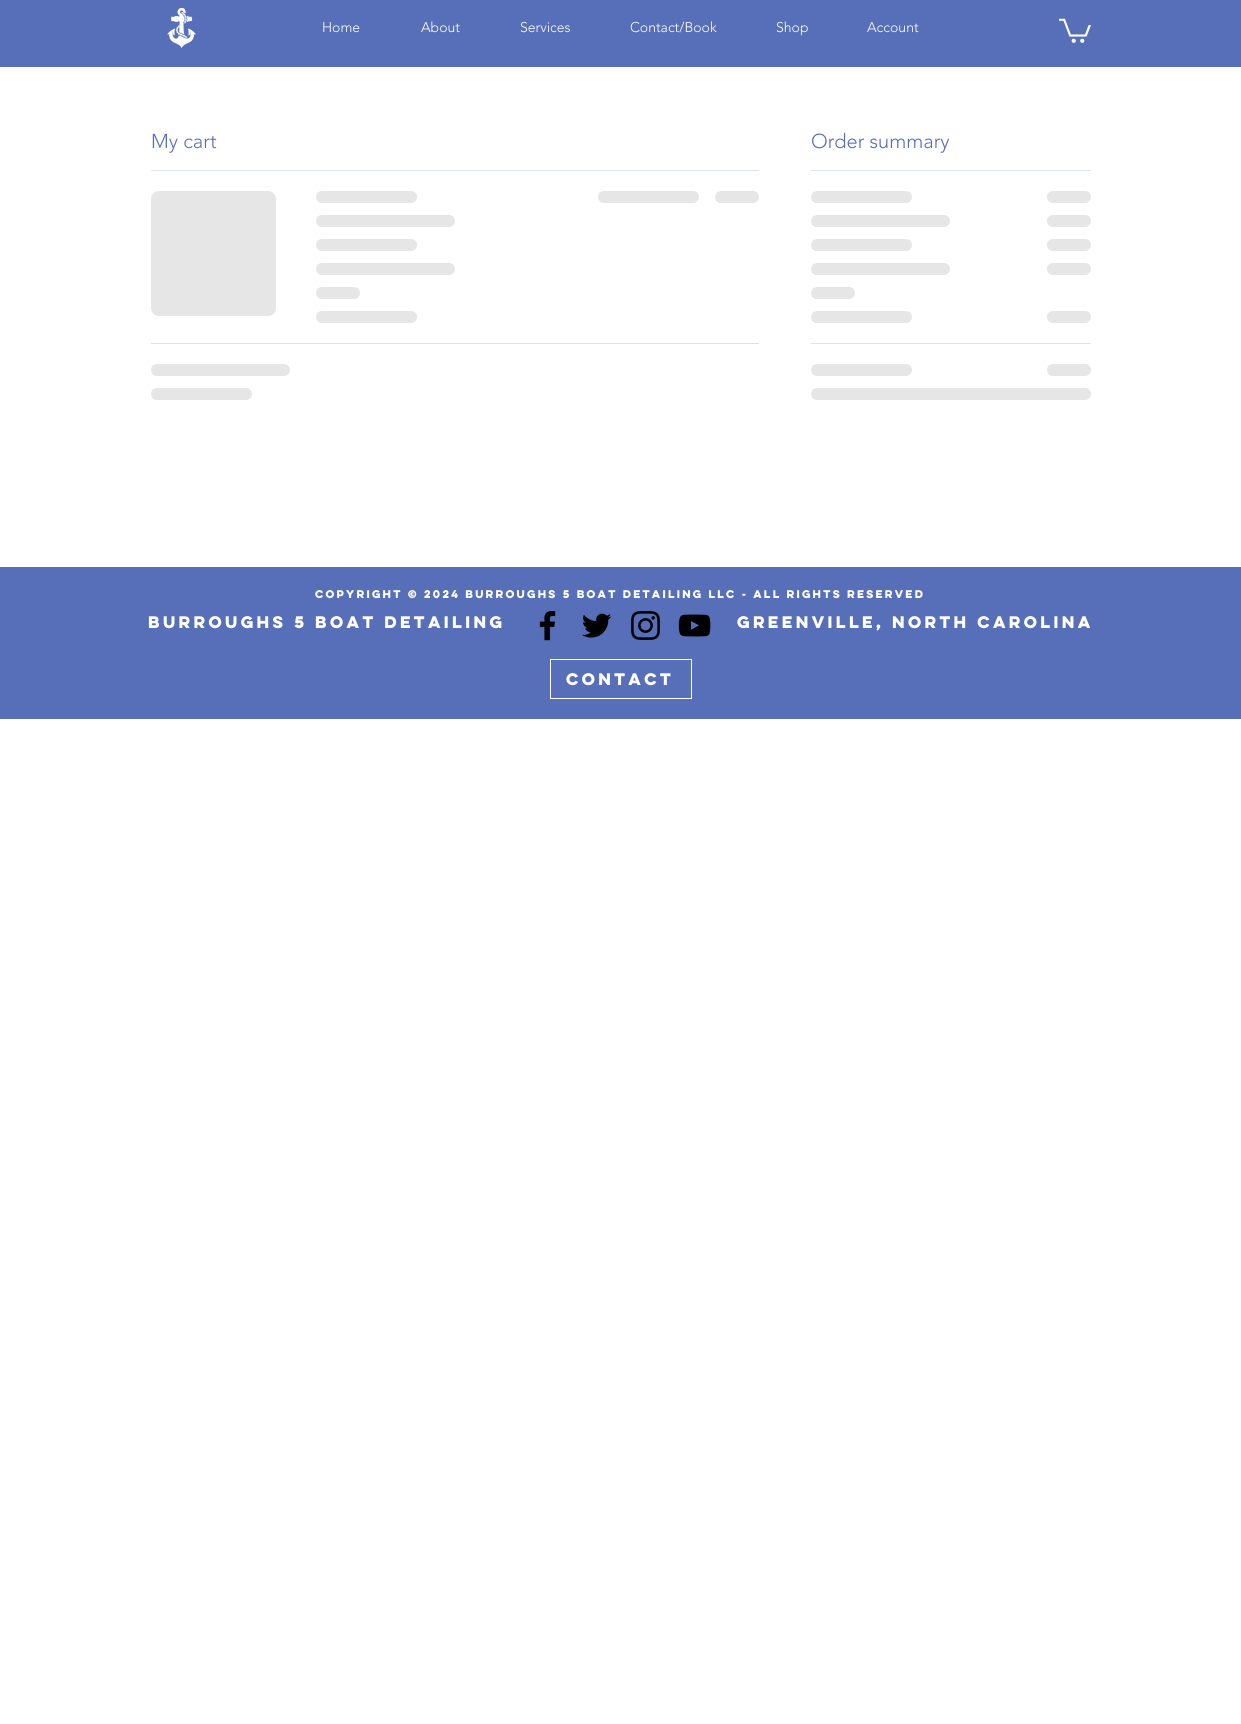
#include <cairo/cairo.h>
#include <math.h>
#include <stddef.h>


static void rounded_rect(cairo_t *cr, double x, double y, double w, double h, double r) {
  cairo_new_sub_path(cr);
  cairo_arc(cr, x + w - r, y + h - r, r, 0, M_PI / 2);
  cairo_arc(cr, x + r, y + h - r, r, M_PI / 2, M_PI);
  cairo_arc(cr, x + r, y + r, r, M_PI, 1.5 * M_PI);
  cairo_arc(cr, x + w - r, y + r, r, 1.5 * M_PI, 2 * M_PI);
  cairo_close_path(cr);
}

static void draw_image(cairo_t *cr, const char *path, double x, double y, double w, double h) {
  cairo_surface_t *image = cairo_image_surface_create_from_png(path);
  cairo_save(cr);
  cairo_set_source_surface(cr, image, x, y);
  cairo_rectangle(cr, x, y, w, h);
  cairo_fill(cr);
  cairo_restore(cr);
  cairo_surface_destroy(image);
}

static void draw(cairo_t *cr) {
  cairo_pattern_t *gradient;
  cairo_set_source_rgb(cr, 1, 1, 1);
  cairo_paint(cr);
  cairo_set_source_rgb(cr, 86 / 255.0, 111 / 255.0, 184 / 255.0);
  cairo_rectangle(cr, 0, 0, 1241, 67);
  cairo_fill(cr);
  draw_image(cr, "images/1.png", 167, 8, 29, 40);
  draw_image(cr, "images/2.png", 1059, 18, 32, 25);
  cairo_set_source_rgb(cr, 221 / 255.0, 226 / 255.0, 241 / 255.0);
  cairo_rectangle(cr, 151, 170, 608, 1);
  cairo_fill(cr);
  gradient = cairo_pattern_create_linear(151, 254, 651, 253);
  cairo_pattern_add_color_stop_rgba(gradient, 0.25, 230 / 255.0, 230 / 255.0, 230 / 255.0, 1);
  cairo_pattern_add_color_stop_rgba(gradient, 0.37, 204 / 255.0, 204 / 255.0, 204 / 255.0, 1);
  cairo_pattern_add_color_stop_rgba(gradient, 0.63, 230 / 255.0, 230 / 255.0, 230 / 255.0, 1);
  cairo_set_source(cr, gradient);
  cairo_pattern_destroy(gradient);
  rounded_rect(cr, 151, 191, 125, 125, 8);
  cairo_fill(cr);
  gradient = cairo_pattern_create_linear(316, 197, 720, 197);
  cairo_pattern_add_color_stop_rgba(gradient, 0.25, 230 / 255.0, 230 / 255.0, 230 / 255.0, 1);
  cairo_pattern_add_color_stop_rgba(gradient, 0.37, 204 / 255.0, 204 / 255.0, 204 / 255.0, 1);
  cairo_pattern_add_color_stop_rgba(gradient, 0.63, 230 / 255.0, 230 / 255.0, 230 / 255.0, 1);
  cairo_set_source(cr, gradient);
  cairo_pattern_destroy(gradient);
  rounded_rect(cr, 316, 191, 101, 12, 6);
  cairo_fill(cr);
  gradient = cairo_pattern_create_linear(316, 221, 872, 221);
  cairo_pattern_add_color_stop_rgba(gradient, 0.25, 230 / 255.0, 230 / 255.0, 230 / 255.0, 1);
  cairo_pattern_add_color_stop_rgba(gradient, 0.37, 204 / 255.0, 204 / 255.0, 204 / 255.0, 1);
  cairo_pattern_add_color_stop_rgba(gradient, 0.63, 230 / 255.0, 230 / 255.0, 230 / 255.0, 1);
  cairo_set_source(cr, gradient);
  cairo_pattern_destroy(gradient);
  rounded_rect(cr, 316, 215, 139, 12, 6);
  cairo_fill(cr);
  gradient = cairo_pattern_create_linear(316, 245, 720, 245);
  cairo_pattern_add_color_stop_rgba(gradient, 0.25, 230 / 255.0, 230 / 255.0, 230 / 255.0, 1);
  cairo_pattern_add_color_stop_rgba(gradient, 0.37, 204 / 255.0, 204 / 255.0, 204 / 255.0, 1);
  cairo_pattern_add_color_stop_rgba(gradient, 0.63, 230 / 255.0, 230 / 255.0, 230 / 255.0, 1);
  cairo_set_source(cr, gradient);
  cairo_pattern_destroy(gradient);
  rounded_rect(cr, 316, 239, 101, 12, 6);
  cairo_fill(cr);
  gradient = cairo_pattern_create_linear(316, 269, 872, 269);
  cairo_pattern_add_color_stop_rgba(gradient, 0.25, 230 / 255.0, 230 / 255.0, 230 / 255.0, 1);
  cairo_pattern_add_color_stop_rgba(gradient, 0.37, 204 / 255.0, 204 / 255.0, 204 / 255.0, 1);
  cairo_pattern_add_color_stop_rgba(gradient, 0.63, 230 / 255.0, 230 / 255.0, 230 / 255.0, 1);
  cairo_set_source(cr, gradient);
  cairo_pattern_destroy(gradient);
  rounded_rect(cr, 316, 263, 139, 12, 6);
  cairo_fill(cr);
  gradient = cairo_pattern_create_linear(316, 293, 492, 293);
  cairo_pattern_add_color_stop_rgba(gradient, 0.25, 230 / 255.0, 230 / 255.0, 230 / 255.0, 1);
  cairo_pattern_add_color_stop_rgba(gradient, 0.37, 204 / 255.0, 204 / 255.0, 204 / 255.0, 1);
  cairo_pattern_add_color_stop_rgba(gradient, 0.63, 230 / 255.0, 230 / 255.0, 230 / 255.0, 1);
  cairo_set_source(cr, gradient);
  cairo_pattern_destroy(gradient);
  rounded_rect(cr, 316, 287, 44, 12, 6);
  cairo_fill(cr);
  gradient = cairo_pattern_create_linear(316, 317, 720, 317);
  cairo_pattern_add_color_stop_rgba(gradient, 0.25, 230 / 255.0, 230 / 255.0, 230 / 255.0, 1);
  cairo_pattern_add_color_stop_rgba(gradient, 0.37, 204 / 255.0, 204 / 255.0, 204 / 255.0, 1);
  cairo_pattern_add_color_stop_rgba(gradient, 0.63, 230 / 255.0, 230 / 255.0, 230 / 255.0, 1);
  cairo_set_source(cr, gradient);
  cairo_pattern_destroy(gradient);
  rounded_rect(cr, 316, 311, 101, 12, 6);
  cairo_fill(cr);
  gradient = cairo_pattern_create_linear(598, 197, 1002, 197);
  cairo_pattern_add_color_stop_rgba(gradient, 0.25, 230 / 255.0, 230 / 255.0, 230 / 255.0, 1);
  cairo_pattern_add_color_stop_rgba(gradient, 0.37, 204 / 255.0, 204 / 255.0, 204 / 255.0, 1);
  cairo_pattern_add_color_stop_rgba(gradient, 0.63, 230 / 255.0, 230 / 255.0, 230 / 255.0, 1);
  cairo_set_source(cr, gradient);
  cairo_pattern_destroy(gradient);
  rounded_rect(cr, 598, 191, 101, 12, 6);
  cairo_fill(cr);
  gradient = cairo_pattern_create_linear(715, 197, 891, 197);
  cairo_pattern_add_color_stop_rgba(gradient, 0.25, 230 / 255.0, 230 / 255.0, 230 / 255.0, 1);
  cairo_pattern_add_color_stop_rgba(gradient, 0.37, 204 / 255.0, 204 / 255.0, 204 / 255.0, 1);
  cairo_pattern_add_color_stop_rgba(gradient, 0.63, 230 / 255.0, 230 / 255.0, 230 / 255.0, 1);
  cairo_set_source(cr, gradient);
  cairo_pattern_destroy(gradient);
  rounded_rect(cr, 715, 191, 44, 12, 6);
  cairo_fill(cr);
  cairo_set_source_rgb(cr, 221 / 255.0, 226 / 255.0, 241 / 255.0);
  cairo_rectangle(cr, 151, 343, 608, 1);
  cairo_fill(cr);
  gradient = cairo_pattern_create_linear(151, 370, 707, 370);
  cairo_pattern_add_color_stop_rgba(gradient, 0.25, 230 / 255.0, 230 / 255.0, 230 / 255.0, 1);
  cairo_pattern_add_color_stop_rgba(gradient, 0.37, 204 / 255.0, 204 / 255.0, 204 / 255.0, 1);
  cairo_pattern_add_color_stop_rgba(gradient, 0.63, 230 / 255.0, 230 / 255.0, 230 / 255.0, 1);
  cairo_set_source(cr, gradient);
  cairo_pattern_destroy(gradient);
  rounded_rect(cr, 151, 364, 139, 12, 6);
  cairo_fill(cr);
  gradient = cairo_pattern_create_linear(151, 394, 555, 394);
  cairo_pattern_add_color_stop_rgba(gradient, 0.25, 230 / 255.0, 230 / 255.0, 230 / 255.0, 1);
  cairo_pattern_add_color_stop_rgba(gradient, 0.37, 204 / 255.0, 204 / 255.0, 204 / 255.0, 1);
  cairo_pattern_add_color_stop_rgba(gradient, 0.63, 230 / 255.0, 230 / 255.0, 230 / 255.0, 1);
  cairo_set_source(cr, gradient);
  cairo_pattern_destroy(gradient);
  rounded_rect(cr, 151, 388, 101, 12, 6);
  cairo_fill(cr);
  cairo_set_source_rgb(cr, 221 / 255.0, 226 / 255.0, 241 / 255.0);
  cairo_rectangle(cr, 811, 170, 280, 1);
  cairo_fill(cr);
  gradient = cairo_pattern_create_linear(811, 197, 1215, 197);
  cairo_pattern_add_color_stop_rgba(gradient, 0.25, 230 / 255.0, 230 / 255.0, 230 / 255.0, 1);
  cairo_pattern_add_color_stop_rgba(gradient, 0.37, 204 / 255.0, 204 / 255.0, 204 / 255.0, 1);
  cairo_pattern_add_color_stop_rgba(gradient, 0.63, 230 / 255.0, 230 / 255.0, 230 / 255.0, 1);
  cairo_set_source(cr, gradient);
  cairo_pattern_destroy(gradient);
  rounded_rect(cr, 811, 191, 101, 12, 6);
  cairo_fill(cr);
  gradient = cairo_pattern_create_linear(1047, 197, 1223, 197);
  cairo_pattern_add_color_stop_rgba(gradient, 0.25, 230 / 255.0, 230 / 255.0, 230 / 255.0, 1);
  cairo_pattern_add_color_stop_rgba(gradient, 0.37, 204 / 255.0, 204 / 255.0, 204 / 255.0, 1);
  cairo_pattern_add_color_stop_rgba(gradient, 0.63, 230 / 255.0, 230 / 255.0, 230 / 255.0, 1);
  cairo_set_source(cr, gradient);
  cairo_pattern_destroy(gradient);
  rounded_rect(cr, 1047, 191, 44, 12, 6);
  cairo_fill(cr);
  gradient = cairo_pattern_create_linear(811, 221, 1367, 221);
  cairo_pattern_add_color_stop_rgba(gradient, 0.25, 230 / 255.0, 230 / 255.0, 230 / 255.0, 1);
  cairo_pattern_add_color_stop_rgba(gradient, 0.37, 204 / 255.0, 204 / 255.0, 204 / 255.0, 1);
  cairo_pattern_add_color_stop_rgba(gradient, 0.63, 230 / 255.0, 230 / 255.0, 230 / 255.0, 1);
  cairo_set_source(cr, gradient);
  cairo_pattern_destroy(gradient);
  rounded_rect(cr, 811, 215, 139, 12, 6);
  cairo_fill(cr);
  gradient = cairo_pattern_create_linear(1047, 221, 1223, 221);
  cairo_pattern_add_color_stop_rgba(gradient, 0.25, 230 / 255.0, 230 / 255.0, 230 / 255.0, 1);
  cairo_pattern_add_color_stop_rgba(gradient, 0.37, 204 / 255.0, 204 / 255.0, 204 / 255.0, 1);
  cairo_pattern_add_color_stop_rgba(gradient, 0.63, 230 / 255.0, 230 / 255.0, 230 / 255.0, 1);
  cairo_set_source(cr, gradient);
  cairo_pattern_destroy(gradient);
  rounded_rect(cr, 1047, 215, 44, 12, 6);
  cairo_fill(cr);
  gradient = cairo_pattern_create_linear(811, 245, 1215, 245);
  cairo_pattern_add_color_stop_rgba(gradient, 0.25, 230 / 255.0, 230 / 255.0, 230 / 255.0, 1);
  cairo_pattern_add_color_stop_rgba(gradient, 0.37, 204 / 255.0, 204 / 255.0, 204 / 255.0, 1);
  cairo_pattern_add_color_stop_rgba(gradient, 0.63, 230 / 255.0, 230 / 255.0, 230 / 255.0, 1);
  cairo_set_source(cr, gradient);
  cairo_pattern_destroy(gradient);
  rounded_rect(cr, 811, 239, 101, 12, 6);
  cairo_fill(cr);
  gradient = cairo_pattern_create_linear(1047, 245, 1223, 245);
  cairo_pattern_add_color_stop_rgba(gradient, 0.25, 230 / 255.0, 230 / 255.0, 230 / 255.0, 1);
  cairo_pattern_add_color_stop_rgba(gradient, 0.37, 204 / 255.0, 204 / 255.0, 204 / 255.0, 1);
  cairo_pattern_add_color_stop_rgba(gradient, 0.63, 230 / 255.0, 230 / 255.0, 230 / 255.0, 1);
  cairo_set_source(cr, gradient);
  cairo_pattern_destroy(gradient);
  rounded_rect(cr, 1047, 239, 44, 12, 6);
  cairo_fill(cr);
  gradient = cairo_pattern_create_linear(811, 269, 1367, 269);
  cairo_pattern_add_color_stop_rgba(gradient, 0.25, 230 / 255.0, 230 / 255.0, 230 / 255.0, 1);
  cairo_pattern_add_color_stop_rgba(gradient, 0.37, 204 / 255.0, 204 / 255.0, 204 / 255.0, 1);
  cairo_pattern_add_color_stop_rgba(gradient, 0.63, 230 / 255.0, 230 / 255.0, 230 / 255.0, 1);
  cairo_set_source(cr, gradient);
  cairo_pattern_destroy(gradient);
  rounded_rect(cr, 811, 263, 139, 12, 6);
  cairo_fill(cr);
  gradient = cairo_pattern_create_linear(1047, 269, 1223, 269);
  cairo_pattern_add_color_stop_rgba(gradient, 0.25, 230 / 255.0, 230 / 255.0, 230 / 255.0, 1);
  cairo_pattern_add_color_stop_rgba(gradient, 0.37, 204 / 255.0, 204 / 255.0, 204 / 255.0, 1);
  cairo_pattern_add_color_stop_rgba(gradient, 0.63, 230 / 255.0, 230 / 255.0, 230 / 255.0, 1);
  cairo_set_source(cr, gradient);
  cairo_pattern_destroy(gradient);
  rounded_rect(cr, 1047, 263, 44, 12, 6);
  cairo_fill(cr);
  gradient = cairo_pattern_create_linear(811, 293, 987, 293);
  cairo_pattern_add_color_stop_rgba(gradient, 0.25, 230 / 255.0, 230 / 255.0, 230 / 255.0, 1);
  cairo_pattern_add_color_stop_rgba(gradient, 0.37, 204 / 255.0, 204 / 255.0, 204 / 255.0, 1);
  cairo_pattern_add_color_stop_rgba(gradient, 0.63, 230 / 255.0, 230 / 255.0, 230 / 255.0, 1);
  cairo_set_source(cr, gradient);
  cairo_pattern_destroy(gradient);
  rounded_rect(cr, 811, 287, 44, 12, 6);
  cairo_fill(cr);
  gradient = cairo_pattern_create_linear(811, 317, 1215, 317);
  cairo_pattern_add_color_stop_rgba(gradient, 0.25, 230 / 255.0, 230 / 255.0, 230 / 255.0, 1);
  cairo_pattern_add_color_stop_rgba(gradient, 0.37, 204 / 255.0, 204 / 255.0, 204 / 255.0, 1);
  cairo_pattern_add_color_stop_rgba(gradient, 0.63, 230 / 255.0, 230 / 255.0, 230 / 255.0, 1);
  cairo_set_source(cr, gradient);
  cairo_pattern_destroy(gradient);
  rounded_rect(cr, 811, 311, 101, 12, 6);
  cairo_fill(cr);
  gradient = cairo_pattern_create_linear(1047, 317, 1223, 317);
  cairo_pattern_add_color_stop_rgba(gradient, 0.25, 230 / 255.0, 230 / 255.0, 230 / 255.0, 1);
  cairo_pattern_add_color_stop_rgba(gradient, 0.37, 204 / 255.0, 204 / 255.0, 204 / 255.0, 1);
  cairo_pattern_add_color_stop_rgba(gradient, 0.63, 230 / 255.0, 230 / 255.0, 230 / 255.0, 1);
  cairo_set_source(cr, gradient);
  cairo_pattern_destroy(gradient);
  rounded_rect(cr, 1047, 311, 44, 12, 6);
  cairo_fill(cr);
  cairo_set_source_rgb(cr, 221 / 255.0, 226 / 255.0, 241 / 255.0);
  cairo_rectangle(cr, 811, 343, 280, 1);
  cairo_fill(cr);
  gradient = cairo_pattern_create_linear(811, 370, 1215, 370);
  cairo_pattern_add_color_stop_rgba(gradient, 0.25, 230 / 255.0, 230 / 255.0, 230 / 255.0, 1);
  cairo_pattern_add_color_stop_rgba(gradient, 0.37, 204 / 255.0, 204 / 255.0, 204 / 255.0, 1);
  cairo_pattern_add_color_stop_rgba(gradient, 0.63, 230 / 255.0, 230 / 255.0, 230 / 255.0, 1);
  cairo_set_source(cr, gradient);
  cairo_pattern_destroy(gradient);
  rounded_rect(cr, 811, 364, 101, 12, 6);
  cairo_fill(cr);
  gradient = cairo_pattern_create_linear(1047, 370, 1223, 370);
  cairo_pattern_add_color_stop_rgba(gradient, 0.25, 230 / 255.0, 230 / 255.0, 230 / 255.0, 1);
  cairo_pattern_add_color_stop_rgba(gradient, 0.37, 204 / 255.0, 204 / 255.0, 204 / 255.0, 1);
  cairo_pattern_add_color_stop_rgba(gradient, 0.63, 230 / 255.0, 230 / 255.0, 230 / 255.0, 1);
  cairo_set_source(cr, gradient);
  cairo_pattern_destroy(gradient);
  rounded_rect(cr, 1047, 364, 44, 12, 6);
  cairo_fill(cr);
  gradient = cairo_pattern_create_linear(811, 394, 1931, 394);
  cairo_pattern_add_color_stop_rgba(gradient, 0.25, 230 / 255.0, 230 / 255.0, 230 / 255.0, 1);
  cairo_pattern_add_color_stop_rgba(gradient, 0.37, 204 / 255.0, 204 / 255.0, 204 / 255.0, 1);
  cairo_pattern_add_color_stop_rgba(gradient, 0.63, 230 / 255.0, 230 / 255.0, 230 / 255.0, 1);
  cairo_set_source(cr, gradient);
  cairo_pattern_destroy(gradient);
  rounded_rect(cr, 811, 388, 280, 12, 6);
  cairo_fill(cr);
  cairo_set_source_rgb(cr, 86 / 255.0, 111 / 255.0, 184 / 255.0);
  cairo_rectangle(cr, 0, 567, 1241, 152);
  cairo_fill(cr);
  draw_image(cr, "images/3.png", 539, 611, 17, 30);
  draw_image(cr, "images/4.png", 582, 613, 30, 25);
  draw_image(cr, "images/5.png", 631, 611, 29, 29);
  draw_image(cr, "images/6.png", 678, 614, 33, 23);
  cairo_rectangle(cr, 550.5, 659.5, 141, 39);
  cairo_set_source_rgb(cr, 1, 1, 1);
  cairo_set_line_width(cr, 1);
  cairo_stroke(cr);
  cairo_select_font_face(cr, "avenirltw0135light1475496 Light", CAIRO_FONT_SLANT_NORMAL, CAIRO_FONT_WEIGHT_NORMAL);
  cairo_set_font_size(cr, 14);
  cairo_move_to(cr, 322, 32);
  cairo_show_text(cr, "Home");
  cairo_move_to(cr, 421, 32);
  cairo_show_text(cr, "About");
  cairo_move_to(cr, 520, 32);
  cairo_show_text(cr, "Services");
  cairo_move_to(cr, 630, 32);
  cairo_show_text(cr, "Contact/Book");
  cairo_move_to(cr, 776, 32);
  cairo_show_text(cr, "Shop");
  cairo_move_to(cr, 867, 32);
  cairo_show_text(cr, "Account");
  cairo_set_font_size(cr, 20);
  cairo_set_source_rgb(cr, 86 / 255.0, 111 / 255.0, 184 / 255.0);
  cairo_move_to(cr, 151, 148);
  cairo_show_text(cr, "My cart");
  cairo_move_to(cr, 811, 148);
  cairo_show_text(cr, "Order summary");
  cairo_select_font_face(cr, "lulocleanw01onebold", CAIRO_FONT_SLANT_NORMAL, CAIRO_FONT_WEIGHT_BOLD);
  cairo_set_font_size(cr, 10);
  cairo_set_source_rgb(cr, 1, 1, 1);
  cairo_move_to(cr, 315, 598);
  cairo_show_text(cr, "Copyright © 2024 Burroughs 5 Boat detailing LLC - all rights reserved");
  cairo_set_font_size(cr, 15);
  cairo_move_to(cr, 148, 628);
  cairo_show_text(cr, "Burroughs 5 Boat Detailing");
  cairo_move_to(cr, 737, 628);
  cairo_show_text(cr, "Greenville, North Carolina");
  cairo_move_to(cr, 566, 685);
  cairo_show_text(cr, "Contact");
}

int main(void) {
  cairo_surface_t *surface = cairo_image_surface_create(CAIRO_FORMAT_RGB24, 1241, 1724);
  cairo_t *cr = cairo_create(surface);
  cairo_font_options_t *options = cairo_font_options_create();
  cairo_font_options_set_hint_metrics(options, CAIRO_HINT_METRICS_OFF);
  cairo_font_options_set_hint_style(options, CAIRO_HINT_STYLE_NONE);
  cairo_set_font_options(cr, options);
  cairo_set_miter_limit(cr, 4);
  draw(cr);
  cairo_surface_write_to_png(surface, "out.png");
  cairo_font_options_destroy(options);
  cairo_destroy(cr);
  cairo_surface_destroy(surface);
  return 0;
}
